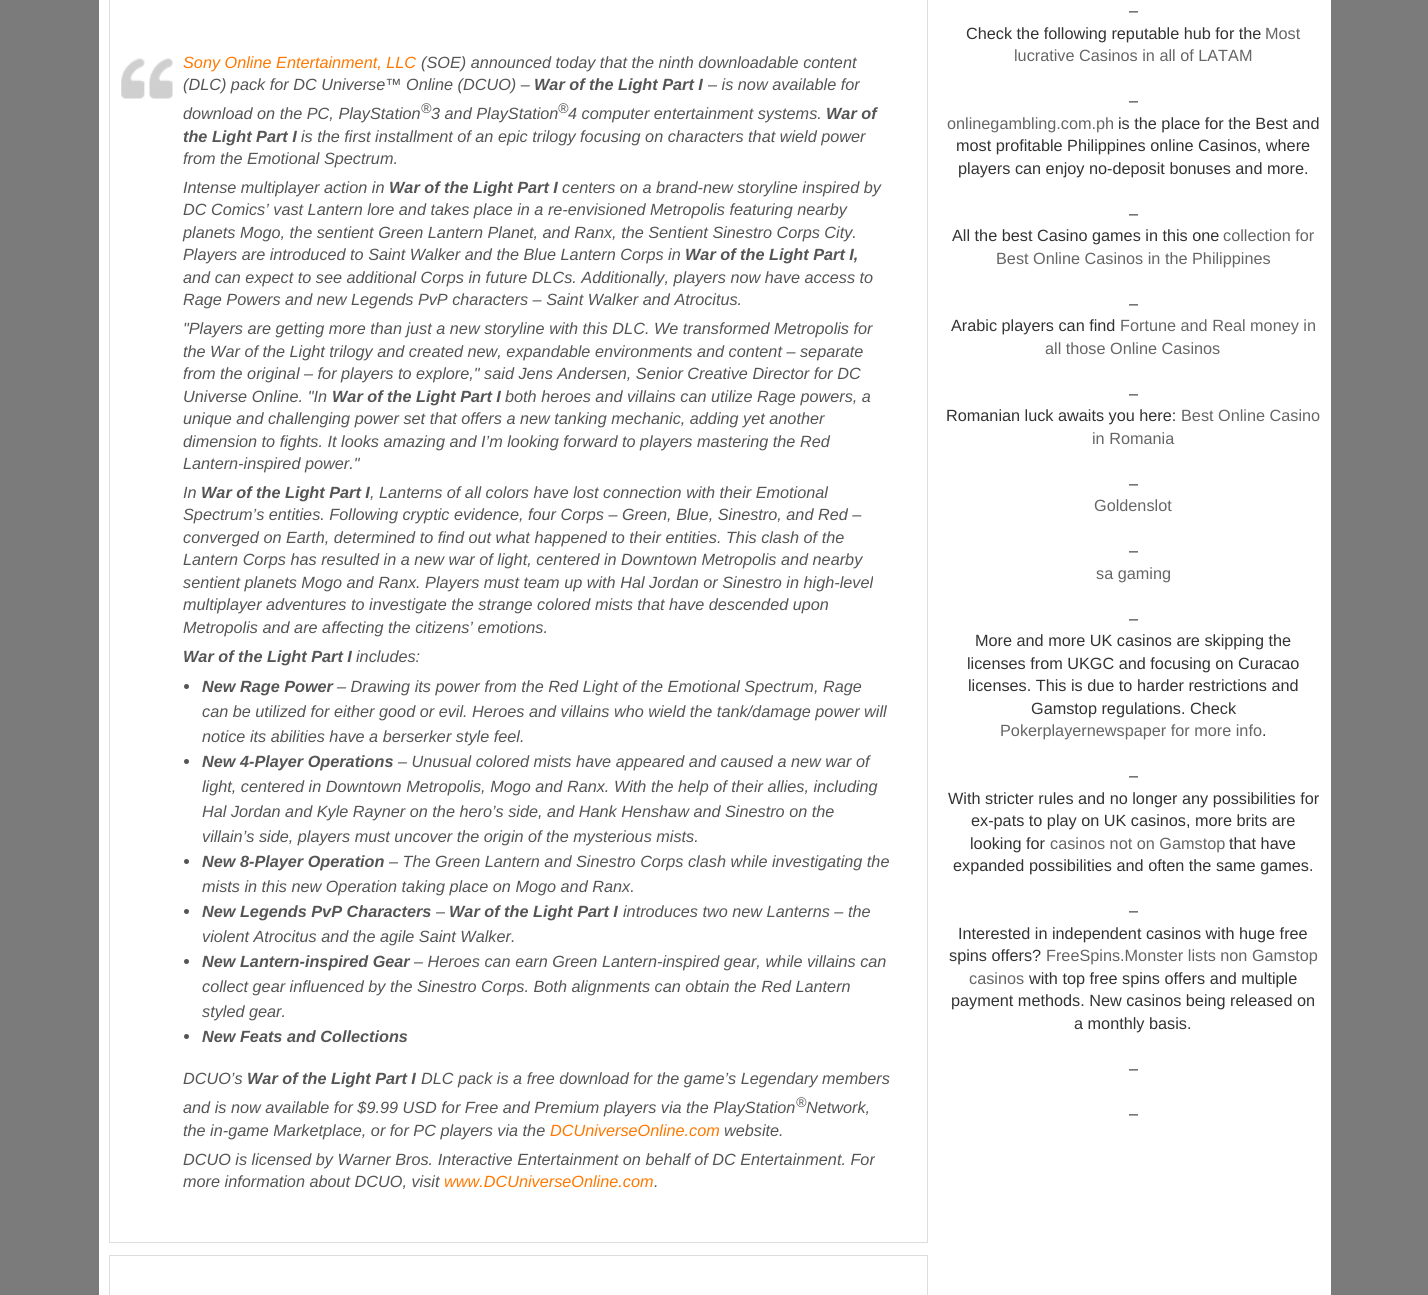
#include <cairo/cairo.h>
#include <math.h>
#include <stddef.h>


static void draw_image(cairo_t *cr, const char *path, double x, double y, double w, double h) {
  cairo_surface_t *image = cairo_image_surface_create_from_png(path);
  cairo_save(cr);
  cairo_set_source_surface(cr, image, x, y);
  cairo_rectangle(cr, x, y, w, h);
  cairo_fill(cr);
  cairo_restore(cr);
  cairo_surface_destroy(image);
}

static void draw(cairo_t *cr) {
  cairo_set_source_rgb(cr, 123 / 255.0, 123 / 255.0, 123 / 255.0);
  cairo_paint(cr);
  cairo_set_source_rgb(cr, 1, 1, 1);
  cairo_rectangle(cr, 99, 0, 1232, 1295);
  cairo_fill(cr);
  cairo_rectangle(cr, 109.5, -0.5, 818, 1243);
  cairo_set_source_rgb(cr, 221 / 255.0, 221 / 255.0, 221 / 255.0);
  cairo_set_line_width(cr, 1);
  cairo_stroke(cr);
  draw_image(cr, "images/1.png", 121, 58, 52, 41);
  cairo_set_source_rgb(cr, 85 / 255.0, 85 / 255.0, 85 / 255.0);
  cairo_arc(cr, 186.5, 686.5, 2.5, 0, 2 * M_PI);
  cairo_fill(cr);
  cairo_arc(cr, 186.5, 761.5, 2.5, 0, 2 * M_PI);
  cairo_fill(cr);
  cairo_arc(cr, 186.5, 861.5, 2.5, 0, 2 * M_PI);
  cairo_fill(cr);
  cairo_arc(cr, 186.5, 911.5, 2.5, 0, 2 * M_PI);
  cairo_fill(cr);
  cairo_arc(cr, 186.5, 961.5, 2.5, 0, 2 * M_PI);
  cairo_fill(cr);
  cairo_arc(cr, 186.5, 1036.5, 2.5, 0, 2 * M_PI);
  cairo_fill(cr);
  cairo_rectangle(cr, 109.5, 1255.5, 818, 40);
  cairo_set_source_rgb(cr, 221 / 255.0, 221 / 255.0, 221 / 255.0);
  cairo_stroke(cr);
  cairo_select_font_face(cr, "Liberation Sans", CAIRO_FONT_SLANT_ITALIC, CAIRO_FONT_WEIGHT_NORMAL);
  cairo_set_font_size(cr, 16.25);
  cairo_set_source_rgb(cr, 1, 120 / 255.0, 0);
  cairo_move_to(cr, 183, 68);
  cairo_show_text(cr, "Sony Online Entertainment, LLC");
  cairo_set_source_rgb(cr, 85 / 255.0, 85 / 255.0, 85 / 255.0);
  cairo_move_to(cr, 421, 68);
  cairo_show_text(cr, "(SOE) announced today that the ninth downloadable content");
  cairo_move_to(cr, 183, 90);
  cairo_show_text(cr, "(DLC) pack for DC Universe™ Online (DCUO) –");
  cairo_select_font_face(cr, "Liberation Sans", CAIRO_FONT_SLANT_ITALIC, CAIRO_FONT_WEIGHT_BOLD);
  cairo_move_to(cr, 534, 90);
  cairo_show_text(cr, "War of the Light Part I");
  cairo_select_font_face(cr, "Liberation Sans", CAIRO_FONT_SLANT_ITALIC, CAIRO_FONT_WEIGHT_NORMAL);
  cairo_move_to(cr, 708, 90);
  cairo_show_text(cr, "– is now available for");
  cairo_move_to(cr, 183, 119);
  cairo_show_text(cr, "download on the PC, PlayStation");
  cairo_set_font_size(cr, 14);
  cairo_move_to(cr, 421, 113);
  cairo_show_text(cr, "®");
  cairo_set_font_size(cr, 16.25);
  cairo_move_to(cr, 431, 119);
  cairo_show_text(cr, "3 and PlayStation");
  cairo_set_font_size(cr, 14);
  cairo_move_to(cr, 558, 113);
  cairo_show_text(cr, "®");
  cairo_set_font_size(cr, 16.25);
  cairo_move_to(cr, 568, 119);
  cairo_show_text(cr, "4 computer entertainment systems.");
  cairo_select_font_face(cr, "Liberation Sans", CAIRO_FONT_SLANT_ITALIC, CAIRO_FONT_WEIGHT_BOLD);
  cairo_move_to(cr, 826, 119);
  cairo_show_text(cr, "War of");
  cairo_move_to(cr, 183, 142);
  cairo_show_text(cr, "the Light Part I");
  cairo_select_font_face(cr, "Liberation Sans", CAIRO_FONT_SLANT_ITALIC, CAIRO_FONT_WEIGHT_NORMAL);
  cairo_move_to(cr, 301, 142);
  cairo_show_text(cr, "is the first installment of an epic trilogy focusing on characters that wield power");
  cairo_move_to(cr, 183, 164);
  cairo_show_text(cr, "from the Emotional Spectrum.");
  cairo_move_to(cr, 183, 193);
  cairo_show_text(cr, "Intense multiplayer action in");
  cairo_select_font_face(cr, "Liberation Sans", CAIRO_FONT_SLANT_ITALIC, CAIRO_FONT_WEIGHT_BOLD);
  cairo_move_to(cr, 389, 193);
  cairo_show_text(cr, "War of the Light Part I");
  cairo_select_font_face(cr, "Liberation Sans", CAIRO_FONT_SLANT_ITALIC, CAIRO_FONT_WEIGHT_NORMAL);
  cairo_move_to(cr, 562, 193);
  cairo_show_text(cr, "centers on a brand-new storyline inspired by");
  cairo_move_to(cr, 183, 215);
  cairo_show_text(cr, "DC Comics’ vast Lantern lore and takes place in a re-envisioned Metropolis featuring nearby");
  cairo_move_to(cr, 183, 238);
  cairo_show_text(cr, "planets Mogo, the sentient Green Lantern Planet, and Ranx, the Sentient Sinestro Corps City.");
  cairo_move_to(cr, 183, 260);
  cairo_show_text(cr, "Players are introduced to Saint Walker and the Blue Lantern Corps in");
  cairo_select_font_face(cr, "Liberation Sans", CAIRO_FONT_SLANT_ITALIC, CAIRO_FONT_WEIGHT_BOLD);
  cairo_move_to(cr, 685, 260);
  cairo_show_text(cr, "War of the Light Part I,");
  cairo_select_font_face(cr, "Liberation Sans", CAIRO_FONT_SLANT_ITALIC, CAIRO_FONT_WEIGHT_NORMAL);
  cairo_move_to(cr, 183, 283);
  cairo_show_text(cr, "and can expect to see additional Corps in future DLCs. Additionally, players now have access to");
  cairo_move_to(cr, 183, 305);
  cairo_show_text(cr, "Rage Powers and new Legends PvP characters – Saint Walker and Atrocitus.");
  cairo_move_to(cr, 183, 334);
  cairo_show_text(cr, "\"Players are getting more than just a new storyline with this DLC. We transformed Metropolis for");
  cairo_move_to(cr, 183, 357);
  cairo_show_text(cr, "the War of the Light trilogy and created new, expandable environments and content – separate");
  cairo_move_to(cr, 183, 379);
  cairo_show_text(cr, "from the original – for players to explore,\" said Jens Andersen, Senior Creative Director for DC");
  cairo_move_to(cr, 183, 402);
  cairo_show_text(cr, "Universe Online. \"In");
  cairo_select_font_face(cr, "Liberation Sans", CAIRO_FONT_SLANT_ITALIC, CAIRO_FONT_WEIGHT_BOLD);
  cairo_move_to(cr, 332, 402);
  cairo_show_text(cr, "War of the Light Part I");
  cairo_select_font_face(cr, "Liberation Sans", CAIRO_FONT_SLANT_ITALIC, CAIRO_FONT_WEIGHT_NORMAL);
  cairo_move_to(cr, 505, 402);
  cairo_show_text(cr, "both heroes and villains can utilize Rage powers, a");
  cairo_move_to(cr, 183, 424);
  cairo_show_text(cr, "unique and challenging power set that offers a new tanking mechanic, adding yet another");
  cairo_move_to(cr, 183, 447);
  cairo_show_text(cr, "dimension to fights. It looks amazing and I’m looking forward to players mastering the Red");
  cairo_move_to(cr, 183, 469);
  cairo_show_text(cr, "Lantern-inspired power.\"");
  cairo_move_to(cr, 183, 498);
  cairo_show_text(cr, "In");
  cairo_select_font_face(cr, "Liberation Sans", CAIRO_FONT_SLANT_ITALIC, CAIRO_FONT_WEIGHT_BOLD);
  cairo_move_to(cr, 201, 498);
  cairo_show_text(cr, "War of the Light Part I");
  cairo_select_font_face(cr, "Liberation Sans", CAIRO_FONT_SLANT_ITALIC, CAIRO_FONT_WEIGHT_NORMAL);
  cairo_move_to(cr, 370, 498);
  cairo_show_text(cr, ", Lanterns of all colors have lost connection with their Emotional");
  cairo_move_to(cr, 183, 520);
  cairo_show_text(cr, "Spectrum’s entities. Following cryptic evidence, four Corps – Green, Blue, Sinestro, and Red –");
  cairo_move_to(cr, 183, 543);
  cairo_show_text(cr, "converged on Earth, determined to find out what happened to their entities. This clash of the");
  cairo_move_to(cr, 183, 565);
  cairo_show_text(cr, "Lantern Corps has resulted in a new war of light, centered in Downtown Metropolis and nearby");
  cairo_move_to(cr, 183, 588);
  cairo_show_text(cr, "sentient planets Mogo and Ranx. Players must team up with Hal Jordan or Sinestro in high-level");
  cairo_move_to(cr, 183, 610);
  cairo_show_text(cr, "multiplayer adventures to investigate the strange colored mists that have descended upon");
  cairo_move_to(cr, 183, 633);
  cairo_show_text(cr, "Metropolis and are affecting the citizens’ emotions.");
  cairo_select_font_face(cr, "Liberation Sans", CAIRO_FONT_SLANT_ITALIC, CAIRO_FONT_WEIGHT_BOLD);
  cairo_move_to(cr, 183, 662);
  cairo_show_text(cr, "War of the Light Part I");
  cairo_select_font_face(cr, "Liberation Sans", CAIRO_FONT_SLANT_ITALIC, CAIRO_FONT_WEIGHT_NORMAL);
  cairo_move_to(cr, 356, 662);
  cairo_show_text(cr, "includes:");
  cairo_select_font_face(cr, "Liberation Sans", CAIRO_FONT_SLANT_ITALIC, CAIRO_FONT_WEIGHT_BOLD);
  cairo_move_to(cr, 202, 692);
  cairo_show_text(cr, "New Rage Power");
  cairo_select_font_face(cr, "Liberation Sans", CAIRO_FONT_SLANT_ITALIC, CAIRO_FONT_WEIGHT_NORMAL);
  cairo_move_to(cr, 337, 692);
  cairo_show_text(cr, "– Drawing its power from the Red Light of the Emotional Spectrum, Rage");
  cairo_move_to(cr, 202, 717);
  cairo_show_text(cr, "can be utilized for either good or evil. Heroes and villains who wield the tank/damage power will");
  cairo_move_to(cr, 202, 742);
  cairo_show_text(cr, "notice its abilities have a berserker style feel.");
  cairo_select_font_face(cr, "Liberation Sans", CAIRO_FONT_SLANT_ITALIC, CAIRO_FONT_WEIGHT_BOLD);
  cairo_move_to(cr, 202, 767);
  cairo_show_text(cr, "New 4-Player Operations");
  cairo_select_font_face(cr, "Liberation Sans", CAIRO_FONT_SLANT_ITALIC, CAIRO_FONT_WEIGHT_NORMAL);
  cairo_move_to(cr, 398, 767);
  cairo_show_text(cr, "– Unusual colored mists have appeared and caused a new war of");
  cairo_move_to(cr, 202, 792);
  cairo_show_text(cr, "light, centered in Downtown Metropolis, Mogo and Ranx. With the help of their allies, including");
  cairo_move_to(cr, 202, 817);
  cairo_show_text(cr, "Hal Jordan and Kyle Rayner on the hero’s side, and Hank Henshaw and Sinestro on the");
  cairo_move_to(cr, 202, 842);
  cairo_show_text(cr, "villain’s side, players must uncover the origin of the mysterious mists.");
  cairo_select_font_face(cr, "Liberation Sans", CAIRO_FONT_SLANT_ITALIC, CAIRO_FONT_WEIGHT_BOLD);
  cairo_move_to(cr, 202, 867);
  cairo_show_text(cr, "New 8-Player Operation");
  cairo_select_font_face(cr, "Liberation Sans", CAIRO_FONT_SLANT_ITALIC, CAIRO_FONT_WEIGHT_NORMAL);
  cairo_move_to(cr, 389, 867);
  cairo_show_text(cr, "– The Green Lantern and Sinestro Corps clash while investigating the");
  cairo_move_to(cr, 202, 892);
  cairo_show_text(cr, "mists in this new Operation taking place on Mogo and Ranx.");
  cairo_select_font_face(cr, "Liberation Sans", CAIRO_FONT_SLANT_ITALIC, CAIRO_FONT_WEIGHT_BOLD);
  cairo_move_to(cr, 202, 917);
  cairo_show_text(cr, "New Legends PvP Characters");
  cairo_select_font_face(cr, "Liberation Sans", CAIRO_FONT_SLANT_ITALIC, CAIRO_FONT_WEIGHT_NORMAL);
  cairo_move_to(cr, 436, 917);
  cairo_show_text(cr, "–");
  cairo_select_font_face(cr, "Liberation Sans", CAIRO_FONT_SLANT_ITALIC, CAIRO_FONT_WEIGHT_BOLD);
  cairo_move_to(cr, 449, 917);
  cairo_show_text(cr, "War of the Light Part I");
  cairo_select_font_face(cr, "Liberation Sans", CAIRO_FONT_SLANT_ITALIC, CAIRO_FONT_WEIGHT_NORMAL);
  cairo_move_to(cr, 623, 917);
  cairo_show_text(cr, "introduces two new Lanterns – the");
  cairo_move_to(cr, 202, 942);
  cairo_show_text(cr, "violent Atrocitus and the agile Saint Walker.");
  cairo_select_font_face(cr, "Liberation Sans", CAIRO_FONT_SLANT_ITALIC, CAIRO_FONT_WEIGHT_BOLD);
  cairo_move_to(cr, 202, 967);
  cairo_show_text(cr, "New Lantern-inspired Gear");
  cairo_select_font_face(cr, "Liberation Sans", CAIRO_FONT_SLANT_ITALIC, CAIRO_FONT_WEIGHT_NORMAL);
  cairo_move_to(cr, 414, 967);
  cairo_show_text(cr, "– Heroes can earn Green Lantern-inspired gear, while villains can");
  cairo_move_to(cr, 202, 992);
  cairo_show_text(cr, "collect gear influenced by the Sinestro Corps. Both alignments can obtain the Red Lantern");
  cairo_move_to(cr, 202, 1017);
  cairo_show_text(cr, "styled gear.");
  cairo_select_font_face(cr, "Liberation Sans", CAIRO_FONT_SLANT_ITALIC, CAIRO_FONT_WEIGHT_BOLD);
  cairo_move_to(cr, 202, 1042);
  cairo_show_text(cr, "New Feats and Collections");
  cairo_select_font_face(cr, "Liberation Sans", CAIRO_FONT_SLANT_ITALIC, CAIRO_FONT_WEIGHT_NORMAL);
  cairo_move_to(cr, 183, 1084);
  cairo_show_text(cr, "DCUO’s");
  cairo_select_font_face(cr, "Liberation Sans", CAIRO_FONT_SLANT_ITALIC, CAIRO_FONT_WEIGHT_BOLD);
  cairo_move_to(cr, 247, 1084);
  cairo_show_text(cr, "War of the Light Part I");
  cairo_select_font_face(cr, "Liberation Sans", CAIRO_FONT_SLANT_ITALIC, CAIRO_FONT_WEIGHT_NORMAL);
  cairo_move_to(cr, 421, 1084);
  cairo_show_text(cr, "DLC pack is a free download for the game’s Legendary members");
  cairo_move_to(cr, 183, 1113);
  cairo_show_text(cr, "and is now available for $9.99 USD for Free and Premium players via the PlayStation");
  cairo_set_font_size(cr, 14);
  cairo_move_to(cr, 796, 1107);
  cairo_show_text(cr, "®");
  cairo_set_font_size(cr, 16.25);
  cairo_move_to(cr, 806, 1113);
  cairo_show_text(cr, "Network,");
  cairo_move_to(cr, 183, 1136);
  cairo_show_text(cr, "the in-game Marketplace, or for PC players via the");
  cairo_set_source_rgb(cr, 1, 120 / 255.0, 0);
  cairo_move_to(cr, 550, 1136);
  cairo_show_text(cr, "DCUniverseOnline.com");
  cairo_set_source_rgb(cr, 85 / 255.0, 85 / 255.0, 85 / 255.0);
  cairo_move_to(cr, 724, 1136);
  cairo_show_text(cr, "website.");
  cairo_move_to(cr, 183, 1165);
  cairo_show_text(cr, "DCUO is licensed by Warner Bros. Interactive Entertainment on behalf of DC Entertainment. For");
  cairo_move_to(cr, 183, 1187);
  cairo_show_text(cr, "more information about DCUO, visit");
  cairo_set_source_rgb(cr, 1, 120 / 255.0, 0);
  cairo_move_to(cr, 444, 1187);
  cairo_show_text(cr, "www.DCUniverseOnline.com");
  cairo_set_source_rgb(cr, 85 / 255.0, 85 / 255.0, 85 / 255.0);
  cairo_move_to(cr, 654, 1187);
  cairo_show_text(cr, ".");
  cairo_select_font_face(cr, "Liberation Sans", CAIRO_FONT_SLANT_NORMAL, CAIRO_FONT_WEIGHT_NORMAL);
  cairo_set_source_rgb(cr, 51 / 255.0, 51 / 255.0, 51 / 255.0);
  cairo_move_to(cr, 1129, 16);
  cairo_show_text(cr, "–");
  cairo_move_to(cr, 966, 39);
  cairo_show_text(cr, "Check the following reputable hub for the");
  cairo_set_source_rgb(cr, 102 / 255.0, 102 / 255.0, 102 / 255.0);
  cairo_move_to(cr, 1265, 39);
  cairo_show_text(cr, "Most");
  cairo_move_to(cr, 1014, 61);
  cairo_show_text(cr, "lucrative Casinos in all of LATAM");
  cairo_set_source_rgb(cr, 51 / 255.0, 51 / 255.0, 51 / 255.0);
  cairo_move_to(cr, 1129, 106);
  cairo_show_text(cr, "–");
  cairo_set_source_rgb(cr, 102 / 255.0, 102 / 255.0, 102 / 255.0);
  cairo_move_to(cr, 947, 129);
  cairo_show_text(cr, "onlinegambling.com.ph");
  cairo_set_source_rgb(cr, 51 / 255.0, 51 / 255.0, 51 / 255.0);
  cairo_move_to(cr, 1118, 129);
  cairo_show_text(cr, "is the place for the Best and");
  cairo_move_to(cr, 956, 151);
  cairo_show_text(cr, "most profitable Philippines online Casinos, where");
  cairo_move_to(cr, 958, 174);
  cairo_show_text(cr, "players can enjoy no-deposit bonuses and more.");
  cairo_move_to(cr, 1129, 219);
  cairo_show_text(cr, "–");
  cairo_move_to(cr, 952, 241);
  cairo_show_text(cr, "All the best Casino games in this one");
  cairo_set_source_rgb(cr, 102 / 255.0, 102 / 255.0, 102 / 255.0);
  cairo_move_to(cr, 1223, 241);
  cairo_show_text(cr, "collection for");
  cairo_move_to(cr, 996, 264);
  cairo_show_text(cr, "Best Online Casinos in the Philippines");
  cairo_set_source_rgb(cr, 51 / 255.0, 51 / 255.0, 51 / 255.0);
  cairo_move_to(cr, 1129, 309);
  cairo_show_text(cr, "–");
  cairo_move_to(cr, 951, 331);
  cairo_show_text(cr, "Arabic players can find");
  cairo_set_source_rgb(cr, 102 / 255.0, 102 / 255.0, 102 / 255.0);
  cairo_move_to(cr, 1120, 331);
  cairo_show_text(cr, "Fortune and Real money in");
  cairo_move_to(cr, 1045, 354);
  cairo_show_text(cr, "all those Online Casinos");
  cairo_set_source_rgb(cr, 51 / 255.0, 51 / 255.0, 51 / 255.0);
  cairo_move_to(cr, 1129, 399);
  cairo_show_text(cr, "–");
  cairo_move_to(cr, 946, 421);
  cairo_show_text(cr, "Romanian luck awaits you here:");
  cairo_set_source_rgb(cr, 102 / 255.0, 102 / 255.0, 102 / 255.0);
  cairo_move_to(cr, 1181, 421);
  cairo_show_text(cr, "Best Online Casino");
  cairo_move_to(cr, 1092, 444);
  cairo_show_text(cr, "in Romania");
  cairo_set_source_rgb(cr, 51 / 255.0, 51 / 255.0, 51 / 255.0);
  cairo_move_to(cr, 1129, 489);
  cairo_show_text(cr, "–");
  cairo_set_source_rgb(cr, 102 / 255.0, 102 / 255.0, 102 / 255.0);
  cairo_move_to(cr, 1094, 511);
  cairo_show_text(cr, "Goldenslot");
  cairo_set_source_rgb(cr, 51 / 255.0, 51 / 255.0, 51 / 255.0);
  cairo_move_to(cr, 1129, 556);
  cairo_show_text(cr, "–");
  cairo_set_source_rgb(cr, 102 / 255.0, 102 / 255.0, 102 / 255.0);
  cairo_move_to(cr, 1096, 579);
  cairo_show_text(cr, "sa gaming");
  cairo_set_source_rgb(cr, 51 / 255.0, 51 / 255.0, 51 / 255.0);
  cairo_move_to(cr, 1129, 624);
  cairo_show_text(cr, "–");
  cairo_move_to(cr, 975, 646);
  cairo_show_text(cr, "More and more UK casinos are skipping the");
  cairo_move_to(cr, 967, 669);
  cairo_show_text(cr, "licenses from UKGC and focusing on Curacao");
  cairo_move_to(cr, 968, 691);
  cairo_show_text(cr, "licenses. This is due to harder restrictions and");
  cairo_move_to(cr, 1031, 714);
  cairo_show_text(cr, "Gamstop regulations. Check");
  cairo_set_source_rgb(cr, 102 / 255.0, 102 / 255.0, 102 / 255.0);
  cairo_move_to(cr, 1000, 736);
  cairo_show_text(cr, "Pokerplayernewspaper for more info");
  cairo_set_source_rgb(cr, 51 / 255.0, 51 / 255.0, 51 / 255.0);
  cairo_move_to(cr, 1262, 736);
  cairo_show_text(cr, ".");
  cairo_move_to(cr, 1129, 781);
  cairo_show_text(cr, "–");
  cairo_move_to(cr, 948, 804);
  cairo_show_text(cr, "With stricter rules and no longer any possibilities for");
  cairo_move_to(cr, 971, 826);
  cairo_show_text(cr, "ex-pats to play on UK casinos, more brits are");
  cairo_move_to(cr, 970, 849);
  cairo_show_text(cr, "looking for");
  cairo_set_source_rgb(cr, 102 / 255.0, 102 / 255.0, 102 / 255.0);
  cairo_move_to(cr, 1050, 849);
  cairo_show_text(cr, "casinos not on Gamstop");
  cairo_set_source_rgb(cr, 51 / 255.0, 51 / 255.0, 51 / 255.0);
  cairo_move_to(cr, 1229, 849);
  cairo_show_text(cr, "that have");
  cairo_move_to(cr, 953, 871);
  cairo_show_text(cr, "expanded possibilities and often the same games.");
  cairo_move_to(cr, 1129, 916);
  cairo_show_text(cr, "–");
  cairo_move_to(cr, 958, 939);
  cairo_show_text(cr, "Interested in independent casinos with huge free");
  cairo_move_to(cr, 949, 961);
  cairo_show_text(cr, "spins offers?");
  cairo_set_source_rgb(cr, 102 / 255.0, 102 / 255.0, 102 / 255.0);
  cairo_move_to(cr, 1046, 961);
  cairo_show_text(cr, "FreeSpins.Monster lists non Gamstop");
  cairo_move_to(cr, 969, 984);
  cairo_show_text(cr, "casinos");
  cairo_set_source_rgb(cr, 51 / 255.0, 51 / 255.0, 51 / 255.0);
  cairo_move_to(cr, 1029, 984);
  cairo_show_text(cr, "with top free spins offers and multiple");
  cairo_move_to(cr, 951, 1006);
  cairo_show_text(cr, "payment methods. New casinos being released on");
  cairo_move_to(cr, 1074, 1029);
  cairo_show_text(cr, "a monthly basis.");
  cairo_move_to(cr, 1129, 1074);
  cairo_show_text(cr, "–");
  cairo_move_to(cr, 1129, 1119);
  cairo_show_text(cr, "–");
}

int main(void) {
  cairo_surface_t *surface = cairo_image_surface_create(CAIRO_FORMAT_RGB24, 1428, 1295);
  cairo_t *cr = cairo_create(surface);
  cairo_font_options_t *options = cairo_font_options_create();
  cairo_font_options_set_hint_metrics(options, CAIRO_HINT_METRICS_OFF);
  cairo_font_options_set_hint_style(options, CAIRO_HINT_STYLE_NONE);
  cairo_set_font_options(cr, options);
  cairo_set_miter_limit(cr, 4);
  draw(cr);
  cairo_surface_write_to_png(surface, "out.png");
  cairo_font_options_destroy(options);
  cairo_destroy(cr);
  cairo_surface_destroy(surface);
  return 0;
}
